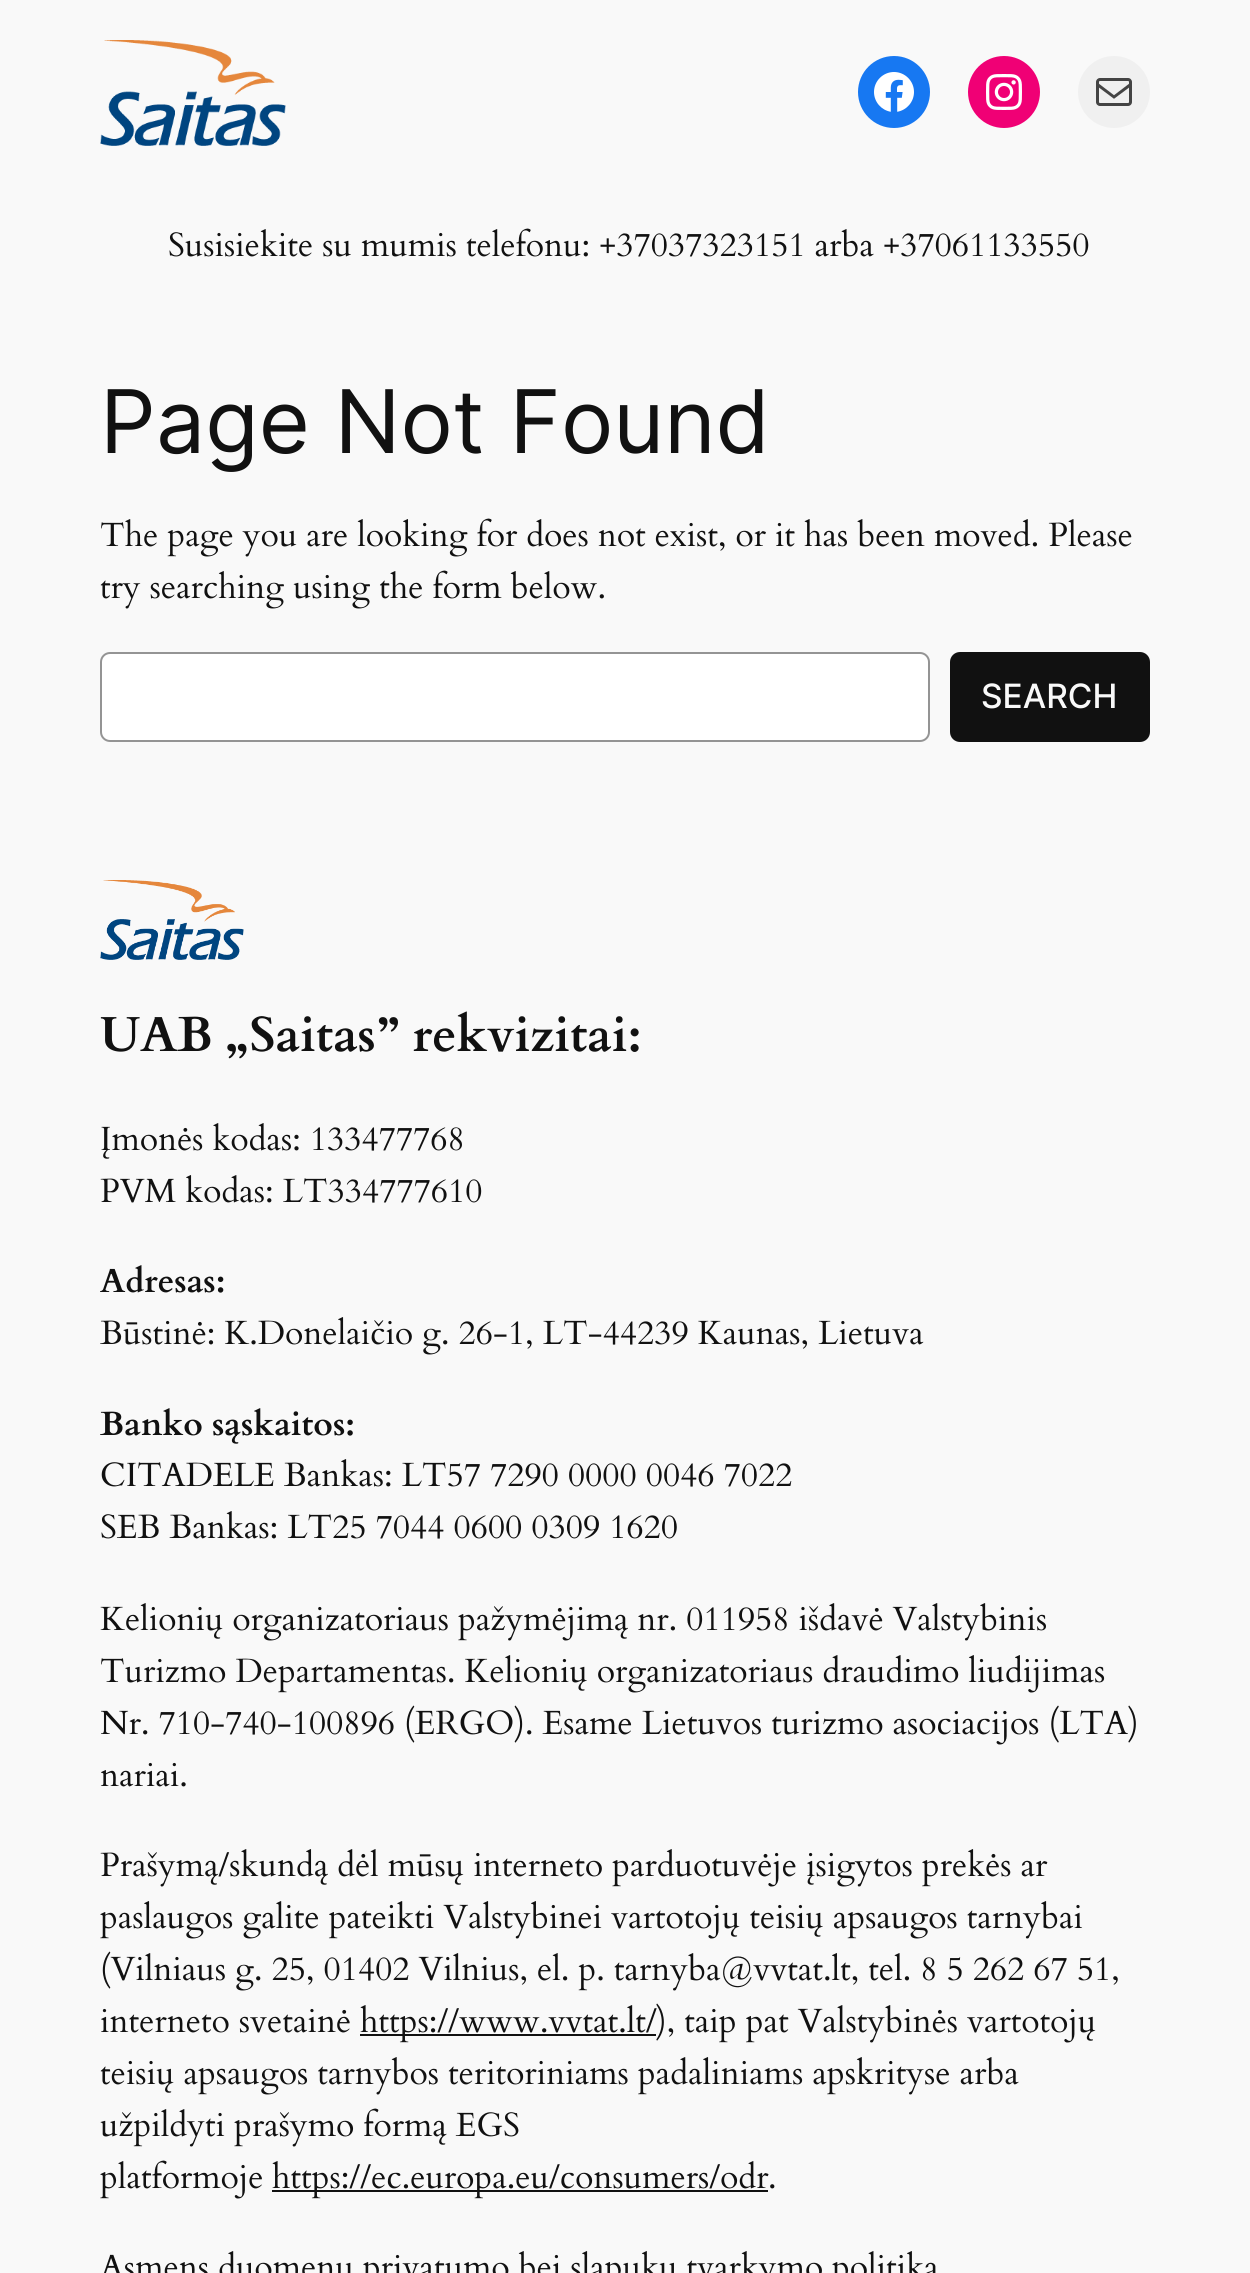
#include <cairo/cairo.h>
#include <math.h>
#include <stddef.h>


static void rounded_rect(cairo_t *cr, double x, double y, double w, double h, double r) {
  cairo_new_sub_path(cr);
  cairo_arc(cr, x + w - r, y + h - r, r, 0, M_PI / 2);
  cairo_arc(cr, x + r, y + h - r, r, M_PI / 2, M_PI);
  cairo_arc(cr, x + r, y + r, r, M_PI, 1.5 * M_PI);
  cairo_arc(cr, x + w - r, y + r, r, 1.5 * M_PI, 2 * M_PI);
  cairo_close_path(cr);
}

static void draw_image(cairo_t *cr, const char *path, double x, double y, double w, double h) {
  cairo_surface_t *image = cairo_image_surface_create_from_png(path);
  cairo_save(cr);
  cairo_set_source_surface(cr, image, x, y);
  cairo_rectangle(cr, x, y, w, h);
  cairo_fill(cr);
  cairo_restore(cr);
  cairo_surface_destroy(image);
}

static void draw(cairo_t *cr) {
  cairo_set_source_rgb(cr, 249 / 255.0, 249 / 255.0, 249 / 255.0);
  cairo_paint(cr);
  draw_image(cr, "images/1.png", 100, 40, 186, 106);
  cairo_set_source_rgb(cr, 23 / 255.0, 120 / 255.0, 242 / 255.0);
  cairo_arc(cr, 894, 92, 36, 0, 2 * M_PI);
  cairo_fill(cr);
  draw_image(cr, "images/2.png", 874, 72, 40, 40);
  cairo_set_source_rgb(cr, 240 / 255.0, 0, 117 / 255.0);
  cairo_arc(cr, 1004, 92, 36, 0, 2 * M_PI);
  cairo_fill(cr);
  draw_image(cr, "images/3.png", 986, 74, 36, 36);
  cairo_set_source_rgb(cr, 240 / 255.0, 240 / 255.0, 240 / 255.0);
  cairo_arc(cr, 1114, 92, 36, 0, 2 * M_PI);
  cairo_fill(cr);
  draw_image(cr, "images/4.png", 1096, 78, 36, 28);
  draw_image(cr, "images/5.png", 169, 228, 920, 29);
  draw_image(cr, "images/6.png", 101, 518, 1031, 39);
  draw_image(cr, "images/7.png", 100, 570, 504, 39);
  cairo_set_source_rgb(cr, 1, 1, 1);
  rounded_rect(cr, 101, 653, 828, 88, 9);
  cairo_fill_preserve(cr);
  cairo_set_source_rgb(cr, 148 / 255.0, 148 / 255.0, 148 / 255.0);
  cairo_stroke(cr);
  cairo_set_source_rgb(cr, 17 / 255.0, 17 / 255.0, 17 / 255.0);
  rounded_rect(cr, 950, 652, 200, 90, 10);
  cairo_fill(cr);
  draw_image(cr, "images/8.png", 100, 880, 144, 80);
  draw_image(cr, "images/9.png", 101, 1123, 361, 36);
  draw_image(cr, "images/10.png", 100, 1175, 382, 28);
  draw_image(cr, "images/11.png", 100, 1317, 824, 38);
  draw_image(cr, "images/12.png", 101, 1459, 691, 28);
  draw_image(cr, "images/13.png", 101, 1511, 576, 28);
  draw_image(cr, "images/14.png", 100, 1603, 946, 38);
  draw_image(cr, "images/15.png", 101, 1655, 1004, 38);
  draw_image(cr, "images/16.png", 101, 1705, 1035, 40);
  draw_image(cr, "images/17.png", 100, 1762, 86, 25);
  draw_image(cr, "images/18.png", 100, 1849, 948, 38);
  draw_image(cr, "images/19.png", 100, 1901, 983, 38);
  draw_image(cr, "images/20.png", 102, 1951, 1016, 40);
  draw_image(cr, "images/21.png", 101, 2008, 249, 25);
  cairo_rectangle(cr, 360, 2034, 296, 2);
  cairo_fill(cr);
  draw_image(cr, "images/22.png", 360, 2005, 297, 38);
  draw_image(cr, "images/23.png", 656, 2003, 440, 40);
  draw_image(cr, "images/24.png", 100, 2057, 919, 38);
  draw_image(cr, "images/25.png", 100, 2108, 419, 39);
  draw_image(cr, "images/26.png", 100, 2160, 162, 39);
  cairo_rectangle(cr, 272, 2190, 496, 2);
  cairo_fill(cr);
  draw_image(cr, "images/27.png", 272, 2161, 497, 38);
  draw_image(cr, "images/28.png", 770, 2184, 5, 5);
  draw_image(cr, "images/29.png", 104, 2251, 718, 22);
  draw_image(cr, "images/30.png", 832, 2251, 104, 22);
  cairo_select_font_face(cr, "Inter", CAIRO_FONT_SLANT_NORMAL, CAIRO_FONT_WEIGHT_NORMAL);
  cairo_set_font_size(cr, 87.75);
  cairo_move_to(cr, 100, 453);
  cairo_show_text(cr, "Page Not Found");
  cairo_select_font_face(cr, "Inter Medium", CAIRO_FONT_SLANT_NORMAL, CAIRO_FONT_WEIGHT_NORMAL);
  cairo_set_font_size(cr, 33.5);
  cairo_set_source_rgb(cr, 249 / 255.0, 249 / 255.0, 249 / 255.0);
  cairo_move_to(cr, 981, 708);
  cairo_show_text(cr, "SEARCH");
  cairo_select_font_face(cr, "Cardo", CAIRO_FONT_SLANT_NORMAL, CAIRO_FONT_WEIGHT_BOLD);
  cairo_set_font_size(cr, 49.25);
  cairo_set_source_rgb(cr, 17 / 255.0, 17 / 255.0, 17 / 255.0);
  cairo_move_to(cr, 100, 1051);
  cairo_show_text(cr, "UAB „Saitas” rekvizitai:");
  cairo_set_font_size(cr, 33.5);
  cairo_move_to(cr, 100, 1292);
  cairo_show_text(cr, "Adresas:");
  cairo_move_to(cr, 100, 1435);
  cairo_show_text(cr, "Banko sąskaitos:");
}

int main(void) {
  cairo_surface_t *surface = cairo_image_surface_create(CAIRO_FORMAT_RGB24, 1250, 2273);
  cairo_t *cr = cairo_create(surface);
  cairo_font_options_t *options = cairo_font_options_create();
  cairo_font_options_set_hint_metrics(options, CAIRO_HINT_METRICS_OFF);
  cairo_font_options_set_hint_style(options, CAIRO_HINT_STYLE_NONE);
  cairo_set_font_options(cr, options);
  cairo_set_miter_limit(cr, 4);
  draw(cr);
  cairo_surface_write_to_png(surface, "out.png");
  cairo_font_options_destroy(options);
  cairo_destroy(cr);
  cairo_surface_destroy(surface);
  return 0;
}
